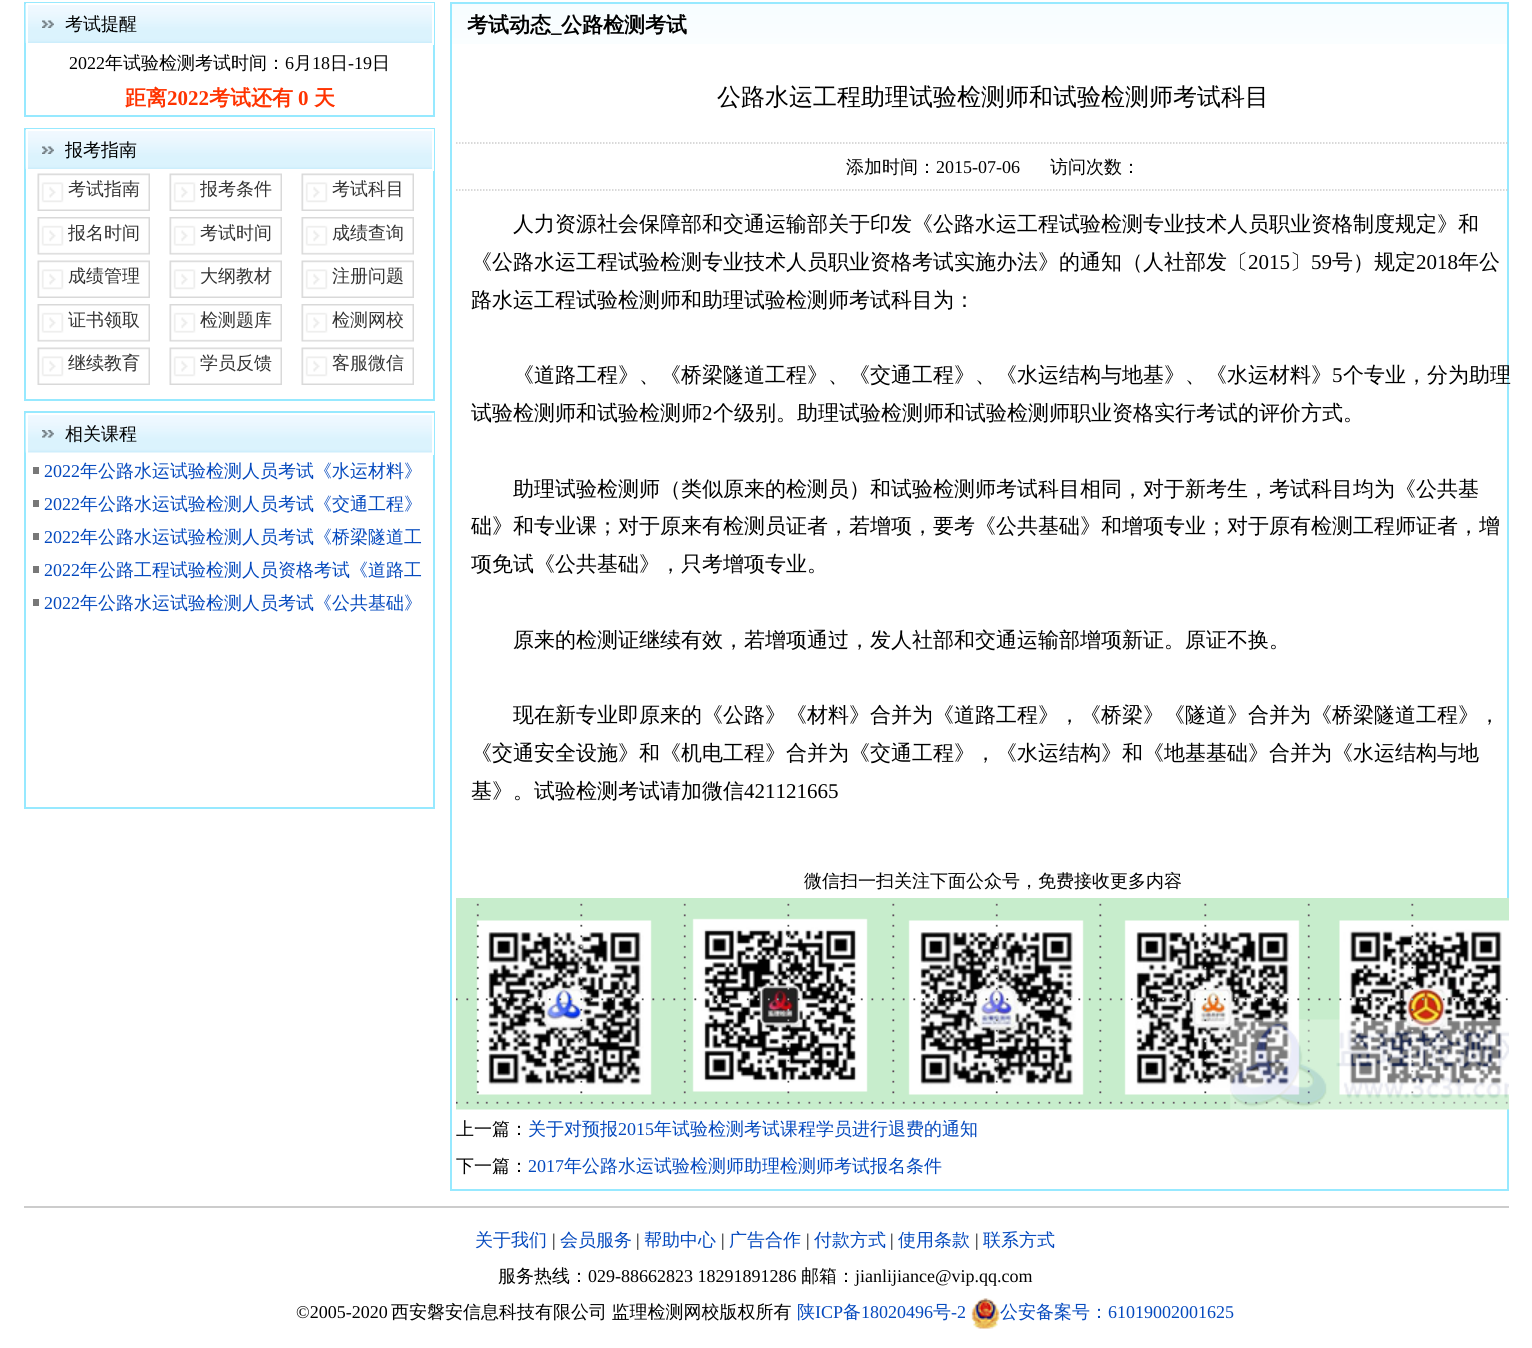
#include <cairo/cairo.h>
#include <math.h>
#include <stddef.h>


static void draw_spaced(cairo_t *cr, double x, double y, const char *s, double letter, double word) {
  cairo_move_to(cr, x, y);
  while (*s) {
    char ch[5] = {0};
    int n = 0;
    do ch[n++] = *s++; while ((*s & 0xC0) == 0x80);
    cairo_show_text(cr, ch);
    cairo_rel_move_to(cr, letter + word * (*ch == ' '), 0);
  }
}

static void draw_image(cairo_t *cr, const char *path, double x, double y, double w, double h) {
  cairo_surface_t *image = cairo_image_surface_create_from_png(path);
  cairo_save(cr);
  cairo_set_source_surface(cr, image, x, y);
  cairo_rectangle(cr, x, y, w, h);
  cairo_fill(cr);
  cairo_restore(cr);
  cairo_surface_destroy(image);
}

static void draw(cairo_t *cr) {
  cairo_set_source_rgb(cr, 1, 1, 1);
  cairo_paint(cr);
  cairo_rectangle(cr, 25, 3, 409, 113);
  cairo_set_source_rgb(cr, 151 / 255.0, 233 / 255.0, 1);
  cairo_stroke(cr);
  draw_image(cr, "images/1.png", 25, 4, 407, 39);
  cairo_rectangle(cr, 27, 4, 406, 40);
  cairo_set_source_rgb(cr, 1, 1, 1);
  cairo_stroke(cr);
  draw_image(cr, "images/2.png", 42, 20, 12, 8);
  cairo_rectangle(cr, 25, 129, 409, 271);
  cairo_set_source_rgb(cr, 151 / 255.0, 233 / 255.0, 1);
  cairo_stroke(cr);
  draw_image(cr, "images/1.png", 25, 130, 407, 39);
  cairo_rectangle(cr, 27, 130, 406, 40);
  cairo_set_source_rgb(cr, 1, 1, 1);
  cairo_stroke(cr);
  draw_image(cr, "images/2.png", 42, 146, 12, 8);
  draw_image(cr, "images/3.png", 37, 173, 113, 38);
  draw_image(cr, "images/3.png", 169, 173, 113, 38);
  draw_image(cr, "images/3.png", 301, 173, 113, 38);
  draw_image(cr, "images/4.png", 37, 217, 113, 38);
  draw_image(cr, "images/4.png", 169, 217, 113, 38);
  draw_image(cr, "images/4.png", 301, 217, 113, 38);
  draw_image(cr, "images/3.png", 37, 260, 113, 38);
  draw_image(cr, "images/3.png", 169, 260, 113, 38);
  draw_image(cr, "images/3.png", 301, 260, 113, 38);
  draw_image(cr, "images/4.png", 37, 304, 113, 38);
  draw_image(cr, "images/4.png", 169, 304, 113, 38);
  draw_image(cr, "images/4.png", 301, 304, 113, 38);
  draw_image(cr, "images/3.png", 37, 347, 113, 38);
  draw_image(cr, "images/3.png", 169, 347, 113, 38);
  draw_image(cr, "images/3.png", 301, 347, 113, 38);
  cairo_rectangle(cr, 25, 412, 409, 396);
  cairo_set_source_rgb(cr, 151 / 255.0, 233 / 255.0, 1);
  cairo_stroke(cr);
  draw_image(cr, "images/5.png", 25, 413, 407, 40);
  cairo_rectangle(cr, 27, 414, 406, 40);
  cairo_set_source_rgb(cr, 1, 1, 1);
  cairo_stroke(cr);
  draw_image(cr, "images/6.png", 42, 430, 12, 8);
  cairo_set_source_rgb(cr, 120 / 255.0, 120 / 255.0, 120 / 255.0);
  cairo_rectangle(cr, 33, 467, 6, 7);
  cairo_fill(cr);
  cairo_rectangle(cr, 33, 500, 6, 7);
  cairo_fill(cr);
  cairo_rectangle(cr, 33, 533, 6, 7);
  cairo_fill(cr);
  cairo_rectangle(cr, 33, 566, 6, 7);
  cairo_fill(cr);
  cairo_rectangle(cr, 33, 599, 6, 7);
  cairo_fill(cr);
  draw_image(cr, "images/7.png", 452, 4, 1055, 40);
  cairo_rectangle(cr, 451, 3, 1057, 1187);
  cairo_set_source_rgb(cr, 151 / 255.0, 233 / 255.0, 1);
  cairo_stroke(cr);
  cairo_save(cr);
  cairo_rectangle(cr, 24, 0, 1485, 1191);
  cairo_clip(cr);
  cairo_new_path(cr);
  cairo_move_to(cr, 456, 143);
  cairo_line_to(cr, 1530, 143);
  cairo_set_source_rgb(cr, 204 / 255.0, 204 / 255.0, 204 / 255.0);
  cairo_set_line_width(cr, 1.5);
  cairo_set_dash(cr, (double[]){1.5, 1.5}, 2, 0);
  cairo_stroke(cr);
  cairo_new_path(cr);
  cairo_move_to(cr, 456, 190);
  cairo_line_to(cr, 1530, 190);
  cairo_stroke(cr);
  cairo_restore(cr);
  draw_image(cr, "images/8.png", 456, 898, 1053, 212);
  cairo_set_source_rgb(cr, 204 / 255.0, 204 / 255.0, 204 / 255.0);
  cairo_rectangle(cr, 24, 1206, 1485, 2);
  cairo_fill(cr);
  draw_image(cr, "images/9.png", 971, 1298, 29, 31);
  cairo_select_font_face(cr, "WenQuanYi Zen Hei Medium", CAIRO_FONT_SLANT_NORMAL, CAIRO_FONT_WEIGHT_NORMAL);
  cairo_set_font_size(cr, 18);
  cairo_set_source_rgb(cr, 0, 0, 0);
  cairo_move_to(cr, 65, 30);
  cairo_show_text(cr, "考试提醒");
  cairo_select_font_face(cr, "Liberation Serif", CAIRO_FONT_SLANT_NORMAL, CAIRO_FONT_WEIGHT_NORMAL);
  cairo_move_to(cr, 69, 69);
  cairo_show_text(cr, "2022");
  cairo_select_font_face(cr, "WenQuanYi Zen Hei Medium", CAIRO_FONT_SLANT_NORMAL, CAIRO_FONT_WEIGHT_NORMAL);
  cairo_move_to(cr, 105, 69);
  cairo_show_text(cr, "年试验检测考试时间：");
  cairo_select_font_face(cr, "Liberation Serif", CAIRO_FONT_SLANT_NORMAL, CAIRO_FONT_WEIGHT_NORMAL);
  cairo_move_to(cr, 285, 69);
  cairo_show_text(cr, "6");
  cairo_select_font_face(cr, "WenQuanYi Zen Hei Medium", CAIRO_FONT_SLANT_NORMAL, CAIRO_FONT_WEIGHT_NORMAL);
  cairo_move_to(cr, 294, 69);
  cairo_show_text(cr, "月");
  cairo_select_font_face(cr, "Liberation Serif", CAIRO_FONT_SLANT_NORMAL, CAIRO_FONT_WEIGHT_NORMAL);
  cairo_move_to(cr, 312, 69);
  cairo_show_text(cr, "18");
  cairo_select_font_face(cr, "WenQuanYi Zen Hei Medium", CAIRO_FONT_SLANT_NORMAL, CAIRO_FONT_WEIGHT_NORMAL);
  cairo_move_to(cr, 330, 69);
  cairo_show_text(cr, "日");
  cairo_select_font_face(cr, "Liberation Serif", CAIRO_FONT_SLANT_NORMAL, CAIRO_FONT_WEIGHT_NORMAL);
  cairo_move_to(cr, 348, 69);
  cairo_show_text(cr, "-19");
  cairo_select_font_face(cr, "WenQuanYi Zen Hei Medium", CAIRO_FONT_SLANT_NORMAL, CAIRO_FONT_WEIGHT_NORMAL);
  cairo_move_to(cr, 372, 69);
  cairo_show_text(cr, "日");
  cairo_select_font_face(cr, "WenQuanYi Zen Hei", CAIRO_FONT_SLANT_NORMAL, CAIRO_FONT_WEIGHT_BOLD);
  cairo_set_font_size(cr, 21);
  cairo_set_source_rgb(cr, 1, 51 / 255.0, 0);
  cairo_move_to(cr, 125, 105);
  cairo_show_text(cr, "距离");
  cairo_select_font_face(cr, "Liberation Serif", CAIRO_FONT_SLANT_NORMAL, CAIRO_FONT_WEIGHT_BOLD);
  cairo_move_to(cr, 167, 105);
  cairo_show_text(cr, "2022");
  cairo_select_font_face(cr, "WenQuanYi Zen Hei", CAIRO_FONT_SLANT_NORMAL, CAIRO_FONT_WEIGHT_BOLD);
  cairo_move_to(cr, 209, 105);
  cairo_show_text(cr, "考试还有");
  cairo_select_font_face(cr, "Liberation Serif", CAIRO_FONT_SLANT_NORMAL, CAIRO_FONT_WEIGHT_BOLD);
  cairo_move_to(cr, 298, 105);
  cairo_show_text(cr, "0");
  cairo_select_font_face(cr, "WenQuanYi Zen Hei", CAIRO_FONT_SLANT_NORMAL, CAIRO_FONT_WEIGHT_BOLD);
  cairo_move_to(cr, 314, 105);
  cairo_show_text(cr, "天");
  cairo_select_font_face(cr, "WenQuanYi Zen Hei Medium", CAIRO_FONT_SLANT_NORMAL, CAIRO_FONT_WEIGHT_NORMAL);
  cairo_set_font_size(cr, 18);
  cairo_set_source_rgb(cr, 0, 0, 0);
  cairo_move_to(cr, 65, 156);
  cairo_show_text(cr, "报考指南");
  cairo_set_source_rgb(cr, 51 / 255.0, 51 / 255.0, 51 / 255.0);
  cairo_move_to(cr, 68, 195);
  cairo_show_text(cr, "考试指南");
  cairo_move_to(cr, 200, 195);
  cairo_show_text(cr, "报考条件");
  cairo_move_to(cr, 332, 195);
  cairo_show_text(cr, "考试科目");
  cairo_move_to(cr, 68, 239);
  cairo_show_text(cr, "报名时间");
  cairo_move_to(cr, 200, 239);
  cairo_show_text(cr, "考试时间");
  cairo_move_to(cr, 332, 239);
  cairo_show_text(cr, "成绩查询");
  cairo_move_to(cr, 68, 282);
  cairo_show_text(cr, "成绩管理");
  cairo_move_to(cr, 200, 282);
  cairo_show_text(cr, "大纲教材");
  cairo_move_to(cr, 332, 282);
  cairo_show_text(cr, "注册问题");
  cairo_move_to(cr, 68, 326);
  cairo_show_text(cr, "证书领取");
  cairo_move_to(cr, 200, 326);
  cairo_show_text(cr, "检测题库");
  cairo_move_to(cr, 332, 326);
  cairo_show_text(cr, "检测网校");
  cairo_move_to(cr, 68, 369);
  cairo_show_text(cr, "继续教育");
  cairo_move_to(cr, 200, 369);
  cairo_show_text(cr, "学员反馈");
  cairo_move_to(cr, 332, 369);
  cairo_show_text(cr, "客服微信");
  cairo_set_source_rgb(cr, 0, 0, 0);
  cairo_move_to(cr, 65, 440);
  cairo_show_text(cr, "相关课程");
  cairo_select_font_face(cr, "Liberation Serif", CAIRO_FONT_SLANT_NORMAL, CAIRO_FONT_WEIGHT_NORMAL);
  cairo_set_source_rgb(cr, 4 / 255.0, 73 / 255.0, 190 / 255.0);
  cairo_move_to(cr, 44, 477);
  cairo_show_text(cr, "2022");
  cairo_select_font_face(cr, "WenQuanYi Zen Hei Medium", CAIRO_FONT_SLANT_NORMAL, CAIRO_FONT_WEIGHT_NORMAL);
  cairo_move_to(cr, 80, 477);
  cairo_show_text(cr, "年公路水运试验检测人员考试《水运材料》");
  cairo_select_font_face(cr, "Liberation Serif", CAIRO_FONT_SLANT_NORMAL, CAIRO_FONT_WEIGHT_NORMAL);
  cairo_move_to(cr, 44, 510);
  cairo_show_text(cr, "2022");
  cairo_select_font_face(cr, "WenQuanYi Zen Hei Medium", CAIRO_FONT_SLANT_NORMAL, CAIRO_FONT_WEIGHT_NORMAL);
  cairo_move_to(cr, 80, 510);
  cairo_show_text(cr, "年公路水运试验检测人员考试《交通工程》");
  cairo_select_font_face(cr, "Liberation Serif", CAIRO_FONT_SLANT_NORMAL, CAIRO_FONT_WEIGHT_NORMAL);
  cairo_move_to(cr, 44, 543);
  cairo_show_text(cr, "2022");
  cairo_select_font_face(cr, "WenQuanYi Zen Hei Medium", CAIRO_FONT_SLANT_NORMAL, CAIRO_FONT_WEIGHT_NORMAL);
  cairo_move_to(cr, 80, 543);
  cairo_show_text(cr, "年公路水运试验检测人员考试《桥梁隧道工");
  cairo_select_font_face(cr, "Liberation Serif", CAIRO_FONT_SLANT_NORMAL, CAIRO_FONT_WEIGHT_NORMAL);
  cairo_move_to(cr, 44, 576);
  cairo_show_text(cr, "2022");
  cairo_select_font_face(cr, "WenQuanYi Zen Hei Medium", CAIRO_FONT_SLANT_NORMAL, CAIRO_FONT_WEIGHT_NORMAL);
  cairo_move_to(cr, 80, 576);
  cairo_show_text(cr, "年公路工程试验检测人员资格考试《道路工");
  cairo_select_font_face(cr, "Liberation Serif", CAIRO_FONT_SLANT_NORMAL, CAIRO_FONT_WEIGHT_NORMAL);
  cairo_move_to(cr, 44, 609);
  cairo_show_text(cr, "2022");
  cairo_select_font_face(cr, "WenQuanYi Zen Hei Medium", CAIRO_FONT_SLANT_NORMAL, CAIRO_FONT_WEIGHT_NORMAL);
  cairo_move_to(cr, 80, 609);
  cairo_show_text(cr, "年公路水运试验检测人员考试《公共基础》");
  cairo_select_font_face(cr, "WenQuanYi Zen Hei", CAIRO_FONT_SLANT_NORMAL, CAIRO_FONT_WEIGHT_BOLD);
  cairo_set_font_size(cr, 21);
  cairo_set_source_rgb(cr, 0, 0, 0);
  cairo_move_to(cr, 467, 32);
  cairo_show_text(cr, "考试动态");
  cairo_select_font_face(cr, "Liberation Serif", CAIRO_FONT_SLANT_NORMAL, CAIRO_FONT_WEIGHT_BOLD);
  cairo_move_to(cr, 551, 32);
  cairo_show_text(cr, "_");
  cairo_select_font_face(cr, "WenQuanYi Zen Hei", CAIRO_FONT_SLANT_NORMAL, CAIRO_FONT_WEIGHT_BOLD);
  cairo_move_to(cr, 561, 32);
  cairo_show_text(cr, "公路检测考试");
  cairo_select_font_face(cr, "WenQuanYi Zen Hei Medium", CAIRO_FONT_SLANT_NORMAL, CAIRO_FONT_WEIGHT_NORMAL);
  cairo_set_font_size(cr, 24);
  cairo_move_to(cr, 717, 105);
  cairo_show_text(cr, "公路水运工程助理试验检测师和试验检测师考试科目");
  cairo_set_font_size(cr, 18);
  cairo_move_to(cr, 846, 173);
  cairo_show_text(cr, "添加时间：");
  cairo_select_font_face(cr, "Liberation Serif", CAIRO_FONT_SLANT_NORMAL, CAIRO_FONT_WEIGHT_NORMAL);
  cairo_move_to(cr, 936, 173);
  cairo_show_text(cr, "2015-07-06");
  cairo_select_font_face(cr, "WenQuanYi Zen Hei Medium", CAIRO_FONT_SLANT_NORMAL, CAIRO_FONT_WEIGHT_NORMAL);
  cairo_move_to(cr, 1050, 173);
  cairo_show_text(cr, "访问次数：");
  cairo_set_font_size(cr, 21);
  cairo_move_to(cr, 513, 231);
  cairo_show_text(cr, "人力资源社会保障部和交通运输部关于印发《公路水运工程试验检测专业技术人员职业资格制度规定》和");
  cairo_move_to(cr, 471, 269);
  cairo_show_text(cr, "《公路水运工程试验检测专业技术人员职业资格考试实施办法》的通知（人社部发〔");
  cairo_select_font_face(cr, "Liberation Serif", CAIRO_FONT_SLANT_NORMAL, CAIRO_FONT_WEIGHT_NORMAL);
  cairo_move_to(cr, 1248, 269);
  cairo_show_text(cr, "2015");
  cairo_select_font_face(cr, "WenQuanYi Zen Hei Medium", CAIRO_FONT_SLANT_NORMAL, CAIRO_FONT_WEIGHT_NORMAL);
  cairo_move_to(cr, 1290, 269);
  cairo_show_text(cr, "〕");
  cairo_select_font_face(cr, "Liberation Serif", CAIRO_FONT_SLANT_NORMAL, CAIRO_FONT_WEIGHT_NORMAL);
  cairo_move_to(cr, 1311, 269);
  cairo_show_text(cr, "59");
  cairo_select_font_face(cr, "WenQuanYi Zen Hei Medium", CAIRO_FONT_SLANT_NORMAL, CAIRO_FONT_WEIGHT_NORMAL);
  cairo_move_to(cr, 1332, 269);
  cairo_show_text(cr, "号）规定");
  cairo_select_font_face(cr, "Liberation Serif", CAIRO_FONT_SLANT_NORMAL, CAIRO_FONT_WEIGHT_NORMAL);
  cairo_move_to(cr, 1416, 269);
  cairo_show_text(cr, "2018");
  cairo_select_font_face(cr, "WenQuanYi Zen Hei Medium", CAIRO_FONT_SLANT_NORMAL, CAIRO_FONT_WEIGHT_NORMAL);
  cairo_move_to(cr, 1458, 269);
  cairo_show_text(cr, "年公");
  cairo_move_to(cr, 471, 307);
  cairo_show_text(cr, "路水运工程试验检测师和助理试验检测师考试科目为：");
  cairo_move_to(cr, 513, 382);
  cairo_show_text(cr, "《道路工程》、《桥梁隧道工程》、《交通工程》、《水运结构与地基》、《水运材料》");
  cairo_select_font_face(cr, "Liberation Serif", CAIRO_FONT_SLANT_NORMAL, CAIRO_FONT_WEIGHT_NORMAL);
  cairo_move_to(cr, 1332, 382);
  cairo_show_text(cr, "5");
  cairo_select_font_face(cr, "WenQuanYi Zen Hei Medium", CAIRO_FONT_SLANT_NORMAL, CAIRO_FONT_WEIGHT_NORMAL);
  cairo_move_to(cr, 1343, 382);
  cairo_show_text(cr, "个专业，分为助理");
  cairo_move_to(cr, 471, 420);
  cairo_show_text(cr, "试验检测师和试验检测师");
  cairo_select_font_face(cr, "Liberation Serif", CAIRO_FONT_SLANT_NORMAL, CAIRO_FONT_WEIGHT_NORMAL);
  cairo_move_to(cr, 702, 420);
  cairo_show_text(cr, "2");
  cairo_select_font_face(cr, "WenQuanYi Zen Hei Medium", CAIRO_FONT_SLANT_NORMAL, CAIRO_FONT_WEIGHT_NORMAL);
  cairo_move_to(cr, 713, 420);
  cairo_show_text(cr, "个级别。助理试验检测师和试验检测师职业资格实行考试的评价方式。");
  cairo_move_to(cr, 513, 496);
  cairo_show_text(cr, "助理试验检测师（类似原来的检测员）和试验检测师考试科目相同，对于新考生，考试科目均为《公共基");
  cairo_move_to(cr, 471, 533);
  cairo_show_text(cr, "础》和专业课；对于原来有检测员证者，若增项，要考《公共基础》和增项专业；对于原有检测工程师证者，增");
  cairo_move_to(cr, 471, 571);
  cairo_show_text(cr, "项免试《公共基础》，只考增项专业。");
  cairo_move_to(cr, 513, 647);
  cairo_show_text(cr, "原来的检测证继续有效，若增项通过，发人社部和交通运输部增项新证。原证不换。");
  cairo_move_to(cr, 513, 722);
  cairo_show_text(cr, "现在新专业即原来的《公路》《材料》合并为《道路工程》，《桥梁》《隧道》合并为《桥梁隧道工程》，");
  cairo_move_to(cr, 471, 760);
  cairo_show_text(cr, "《交通安全设施》和《机电工程》合并为《交通工程》，《水运结构》和《地基基础》合并为《水运结构与地");
  cairo_move_to(cr, 471, 798);
  cairo_show_text(cr, "基》。试验检测考试请加微信");
  cairo_select_font_face(cr, "Liberation Serif", CAIRO_FONT_SLANT_NORMAL, CAIRO_FONT_WEIGHT_NORMAL);
  cairo_move_to(cr, 744, 798);
  cairo_show_text(cr, "421121665");
  cairo_select_font_face(cr, "WenQuanYi Zen Hei Medium", CAIRO_FONT_SLANT_NORMAL, CAIRO_FONT_WEIGHT_NORMAL);
  cairo_set_font_size(cr, 18);
  cairo_move_to(cr, 804, 887);
  cairo_show_text(cr, "微信扫一扫关注下面公众号，免费接收更多内容");
  cairo_move_to(cr, 456, 1135);
  cairo_show_text(cr, "上一篇：");
  cairo_set_source_rgb(cr, 4 / 255.0, 73 / 255.0, 190 / 255.0);
  cairo_move_to(cr, 528, 1135);
  cairo_show_text(cr, "关于对预报");
  cairo_select_font_face(cr, "Liberation Serif", CAIRO_FONT_SLANT_NORMAL, CAIRO_FONT_WEIGHT_NORMAL);
  cairo_move_to(cr, 618, 1135);
  cairo_show_text(cr, "2015");
  cairo_select_font_face(cr, "WenQuanYi Zen Hei Medium", CAIRO_FONT_SLANT_NORMAL, CAIRO_FONT_WEIGHT_NORMAL);
  cairo_move_to(cr, 654, 1135);
  cairo_show_text(cr, "年试验检测考试课程学员进行退费的通知");
  cairo_set_source_rgb(cr, 0, 0, 0);
  cairo_move_to(cr, 456, 1172);
  cairo_show_text(cr, "下一篇：");
  cairo_select_font_face(cr, "Liberation Serif", CAIRO_FONT_SLANT_NORMAL, CAIRO_FONT_WEIGHT_NORMAL);
  cairo_set_source_rgb(cr, 4 / 255.0, 73 / 255.0, 190 / 255.0);
  cairo_move_to(cr, 528, 1172);
  cairo_show_text(cr, "2017");
  cairo_select_font_face(cr, "WenQuanYi Zen Hei Medium", CAIRO_FONT_SLANT_NORMAL, CAIRO_FONT_WEIGHT_NORMAL);
  cairo_move_to(cr, 564, 1172);
  cairo_show_text(cr, "年公路水运试验检测师助理检测师考试报名条件");
  cairo_move_to(cr, 475, 1246);
  cairo_show_text(cr, "关于我们");
  cairo_select_font_face(cr, "Liberation Serif", CAIRO_FONT_SLANT_NORMAL, CAIRO_FONT_WEIGHT_NORMAL);
  cairo_set_source_rgb(cr, 0, 0, 0);
  cairo_move_to(cr, 552, 1246);
  cairo_show_text(cr, "|");
  cairo_select_font_face(cr, "WenQuanYi Zen Hei Medium", CAIRO_FONT_SLANT_NORMAL, CAIRO_FONT_WEIGHT_NORMAL);
  cairo_set_source_rgb(cr, 4 / 255.0, 73 / 255.0, 190 / 255.0);
  cairo_move_to(cr, 560, 1246);
  cairo_show_text(cr, "会员服务");
  cairo_select_font_face(cr, "Liberation Serif", CAIRO_FONT_SLANT_NORMAL, CAIRO_FONT_WEIGHT_NORMAL);
  cairo_set_source_rgb(cr, 0, 0, 0);
  cairo_move_to(cr, 636, 1246);
  cairo_show_text(cr, "|");
  cairo_select_font_face(cr, "WenQuanYi Zen Hei Medium", CAIRO_FONT_SLANT_NORMAL, CAIRO_FONT_WEIGHT_NORMAL);
  cairo_set_source_rgb(cr, 4 / 255.0, 73 / 255.0, 190 / 255.0);
  cairo_move_to(cr, 644, 1246);
  cairo_show_text(cr, "帮助中心");
  cairo_select_font_face(cr, "Liberation Serif", CAIRO_FONT_SLANT_NORMAL, CAIRO_FONT_WEIGHT_NORMAL);
  cairo_set_source_rgb(cr, 0, 0, 0);
  cairo_move_to(cr, 721, 1246);
  cairo_show_text(cr, "|");
  cairo_select_font_face(cr, "WenQuanYi Zen Hei Medium", CAIRO_FONT_SLANT_NORMAL, CAIRO_FONT_WEIGHT_NORMAL);
  cairo_set_source_rgb(cr, 4 / 255.0, 73 / 255.0, 190 / 255.0);
  cairo_move_to(cr, 729, 1246);
  cairo_show_text(cr, "广告合作");
  cairo_select_font_face(cr, "Liberation Serif", CAIRO_FONT_SLANT_NORMAL, CAIRO_FONT_WEIGHT_NORMAL);
  cairo_set_source_rgb(cr, 0, 0, 0);
  cairo_move_to(cr, 806, 1246);
  cairo_show_text(cr, "|");
  cairo_select_font_face(cr, "WenQuanYi Zen Hei Medium", CAIRO_FONT_SLANT_NORMAL, CAIRO_FONT_WEIGHT_NORMAL);
  cairo_set_source_rgb(cr, 4 / 255.0, 73 / 255.0, 190 / 255.0);
  cairo_move_to(cr, 814, 1246);
  cairo_show_text(cr, "付款方式");
  cairo_select_font_face(cr, "Liberation Serif", CAIRO_FONT_SLANT_NORMAL, CAIRO_FONT_WEIGHT_NORMAL);
  cairo_set_source_rgb(cr, 0, 0, 0);
  cairo_move_to(cr, 890, 1246);
  cairo_show_text(cr, "|");
  cairo_select_font_face(cr, "WenQuanYi Zen Hei Medium", CAIRO_FONT_SLANT_NORMAL, CAIRO_FONT_WEIGHT_NORMAL);
  cairo_set_source_rgb(cr, 4 / 255.0, 73 / 255.0, 190 / 255.0);
  cairo_move_to(cr, 898, 1246);
  cairo_show_text(cr, "使用条款");
  cairo_select_font_face(cr, "Liberation Serif", CAIRO_FONT_SLANT_NORMAL, CAIRO_FONT_WEIGHT_NORMAL);
  cairo_set_source_rgb(cr, 0, 0, 0);
  cairo_move_to(cr, 975, 1246);
  cairo_show_text(cr, "|");
  cairo_select_font_face(cr, "WenQuanYi Zen Hei Medium", CAIRO_FONT_SLANT_NORMAL, CAIRO_FONT_WEIGHT_NORMAL);
  cairo_set_source_rgb(cr, 4 / 255.0, 73 / 255.0, 190 / 255.0);
  cairo_move_to(cr, 983, 1246);
  cairo_show_text(cr, "联系方式");
  cairo_set_source_rgb(cr, 0, 0, 0);
  cairo_move_to(cr, 498, 1282);
  cairo_show_text(cr, "服务热线：");
  cairo_select_font_face(cr, "Liberation Serif", CAIRO_FONT_SLANT_NORMAL, CAIRO_FONT_WEIGHT_NORMAL);
  cairo_move_to(cr, 588, 1282);
  cairo_show_text(cr, "029-88662823 18291891286");
  cairo_select_font_face(cr, "WenQuanYi Zen Hei Medium", CAIRO_FONT_SLANT_NORMAL, CAIRO_FONT_WEIGHT_NORMAL);
  cairo_move_to(cr, 801, 1282);
  cairo_show_text(cr, "邮箱：");
  cairo_select_font_face(cr, "Liberation Serif", CAIRO_FONT_SLANT_NORMAL, CAIRO_FONT_WEIGHT_NORMAL);
  cairo_move_to(cr, 855, 1282);
  cairo_show_text(cr, "jianlijiance@vip.qq.com");
  cairo_move_to(cr, 296, 1318);
  cairo_show_text(cr, "©2005-2020");
  cairo_select_font_face(cr, "WenQuanYi Zen Hei Medium", CAIRO_FONT_SLANT_NORMAL, CAIRO_FONT_WEIGHT_NORMAL);
  draw_spaced(cr, 391, 1318, "西安磐安信息科技有限公司 监理检测网校版权所有", 0, -1);
  cairo_set_source_rgb(cr, 4 / 255.0, 73 / 255.0, 190 / 255.0);
  cairo_move_to(cr, 797, 1318);
  cairo_show_text(cr, "陕");
  cairo_select_font_face(cr, "Liberation Serif", CAIRO_FONT_SLANT_NORMAL, CAIRO_FONT_WEIGHT_NORMAL);
  cairo_move_to(cr, 815, 1318);
  cairo_show_text(cr, "ICP");
  cairo_select_font_face(cr, "WenQuanYi Zen Hei Medium", CAIRO_FONT_SLANT_NORMAL, CAIRO_FONT_WEIGHT_NORMAL);
  cairo_move_to(cr, 843, 1318);
  cairo_show_text(cr, "备");
  cairo_select_font_face(cr, "Liberation Serif", CAIRO_FONT_SLANT_NORMAL, CAIRO_FONT_WEIGHT_NORMAL);
  cairo_move_to(cr, 861, 1318);
  cairo_show_text(cr, "18020496");
  cairo_select_font_face(cr, "WenQuanYi Zen Hei Medium", CAIRO_FONT_SLANT_NORMAL, CAIRO_FONT_WEIGHT_NORMAL);
  cairo_move_to(cr, 933, 1318);
  cairo_show_text(cr, "号");
  cairo_select_font_face(cr, "Liberation Serif", CAIRO_FONT_SLANT_NORMAL, CAIRO_FONT_WEIGHT_NORMAL);
  cairo_move_to(cr, 951, 1318);
  cairo_show_text(cr, "-2");
  cairo_select_font_face(cr, "WenQuanYi Zen Hei Medium", CAIRO_FONT_SLANT_NORMAL, CAIRO_FONT_WEIGHT_NORMAL);
  cairo_move_to(cr, 1000, 1318);
  cairo_show_text(cr, "公安备案号：");
  cairo_select_font_face(cr, "Liberation Serif", CAIRO_FONT_SLANT_NORMAL, CAIRO_FONT_WEIGHT_NORMAL);
  cairo_move_to(cr, 1108, 1318);
  cairo_show_text(cr, "61019002001625");
}

int main(void) {
  cairo_surface_t *surface = cairo_image_surface_create(CAIRO_FORMAT_RGB24, 1532, 1348);
  cairo_t *cr = cairo_create(surface);
  cairo_font_options_t *options = cairo_font_options_create();
  cairo_font_options_set_hint_metrics(options, CAIRO_HINT_METRICS_OFF);
  cairo_font_options_set_hint_style(options, CAIRO_HINT_STYLE_NONE);
  cairo_set_font_options(cr, options);
  cairo_set_miter_limit(cr, 4);
  draw(cr);
  cairo_surface_write_to_png(surface, "out.png");
  cairo_font_options_destroy(options);
  cairo_destroy(cr);
  cairo_surface_destroy(surface);
  return 0;
}
